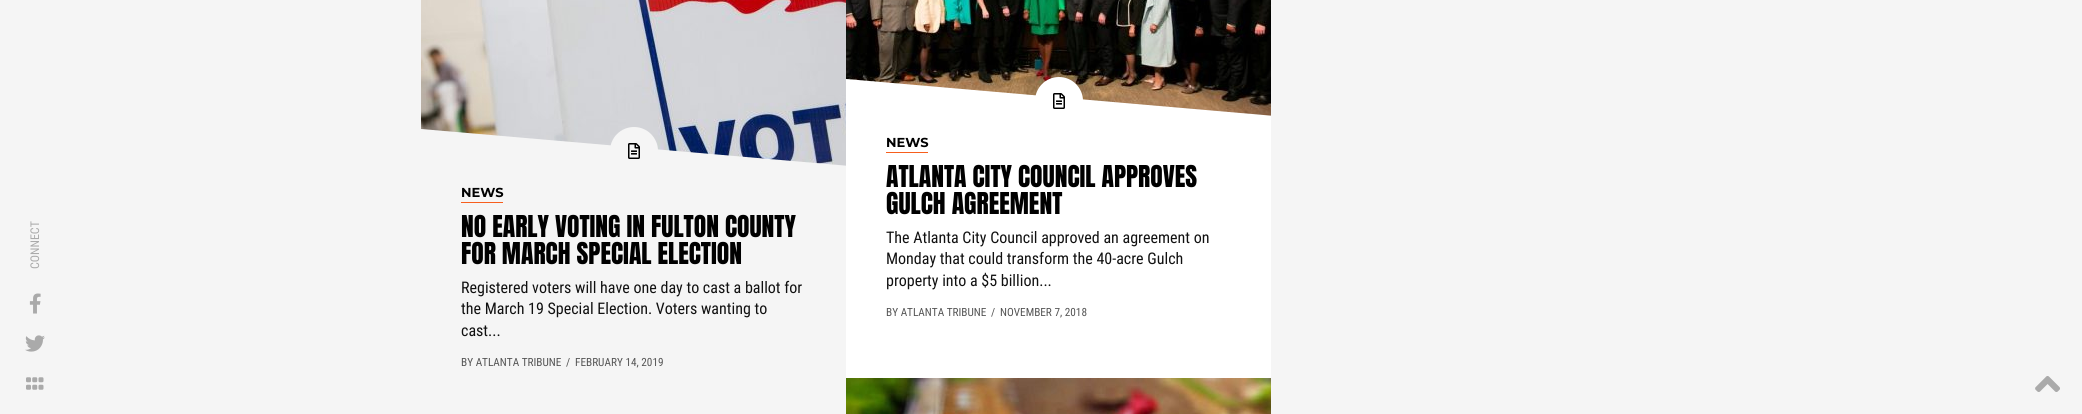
#include <cairo/cairo.h>
#include <math.h>
#include <stddef.h>


static void draw_image(cairo_t *cr, const char *path, double x, double y, double w, double h) {
  cairo_surface_t *image = cairo_image_surface_create_from_png(path);
  cairo_save(cr);
  cairo_set_source_surface(cr, image, x, y);
  cairo_rectangle(cr, x, y, w, h);
  cairo_fill(cr);
  cairo_restore(cr);
  cairo_surface_destroy(image);
}

static void draw(cairo_t *cr) {
  cairo_set_source_rgb(cr, 245 / 255.0, 245 / 255.0, 245 / 255.0);
  cairo_paint(cr);
  draw_image(cr, "images/1.png", 29, 293, 12, 21);
  draw_image(cr, "images/2.png", 25, 335, 20, 17);
  draw_image(cr, "images/3.png", 26, 377, 18, 13);
  draw_image(cr, "images/4.png", 2035, 376, 25, 16);
  draw_image(cr, "images/5.png", 421, 0, 425, 166);
  cairo_save(cr);
  cairo_rectangle(cr, 421, 0, 425, 177);
  cairo_clip(cr);
  cairo_set_source_rgb(cr, 245 / 255.0, 245 / 255.0, 245 / 255.0);
  cairo_new_path(cr);
  cairo_move_to(cr, 421, 129);
  cairo_line_to(cr, 850, 166);
  cairo_line_to(cr, 850, 316);
  cairo_line_to(cr, 421, 279);
  cairo_close_path(cr);
  cairo_fill(cr);
  cairo_restore(cr);
  cairo_set_source_rgb(cr, 245 / 255.0, 245 / 255.0, 245 / 255.0);
  cairo_arc(cr, 634, 151, 24, 0, 2 * M_PI);
  cairo_fill(cr);
  draw_image(cr, "images/6.png", 628, 143, 12, 16);
  cairo_set_source_rgb(cr, 247 / 255.0, 94 / 255.0, 29 / 255.0);
  cairo_rectangle(cr, 461, 202, 42, 1);
  cairo_fill(cr);
  cairo_set_source_rgb(cr, 1, 1, 1);
  cairo_rectangle(cr, 846, 127, 425, 251);
  cairo_fill(cr);
  draw_image(cr, "images/7.png", 846, 0, 425, 116);
  cairo_save(cr);
  cairo_rectangle(cr, 846, 0, 425, 127);
  cairo_clip(cr);
  cairo_new_path(cr);
  cairo_move_to(cr, 846, 79);
  cairo_line_to(cr, 1275, 116);
  cairo_line_to(cr, 1275, 266);
  cairo_line_to(cr, 846, 229);
  cairo_close_path(cr);
  cairo_fill(cr);
  cairo_restore(cr);
  cairo_arc(cr, 1059, 101, 24, 0, 2 * M_PI);
  cairo_fill(cr);
  draw_image(cr, "images/8.png", 1053, 93, 12, 16);
  cairo_set_source_rgb(cr, 247 / 255.0, 94 / 255.0, 29 / 255.0);
  cairo_rectangle(cr, 886, 152, 42, 1);
  cairo_fill(cr);
  draw_image(cr, "images/9.png", 846, 378, 425, 36);
  cairo_select_font_face(cr, "Roboto Condensed", CAIRO_FONT_SLANT_NORMAL, CAIRO_FONT_WEIGHT_NORMAL);
  cairo_set_font_size(cr, 12);
  cairo_set_source_rgb(cr, 170 / 255.0, 170 / 255.0, 170 / 255.0);
  cairo_save(cr);
  cairo_translate(cr, 39, 269);
  cairo_rotate(cr, -90 * M_PI / 180);
  cairo_move_to(cr, 0, 0);
  cairo_show_text(cr, "CONNECT");
  cairo_restore(cr);
  cairo_select_font_face(cr, "Montserrat", CAIRO_FONT_SLANT_NORMAL, CAIRO_FONT_WEIGHT_BOLD);
  cairo_set_font_size(cr, 13);
  cairo_set_source_rgb(cr, 0, 0, 0);
  cairo_move_to(cr, 461, 197);
  cairo_show_text(cr, "NEWS");
  cairo_select_font_face(cr, "Anton", CAIRO_FONT_SLANT_NORMAL, CAIRO_FONT_WEIGHT_NORMAL);
  cairo_set_font_size(cr, 25.6);
  cairo_move_to(cr, 461, 237);
  cairo_show_text(cr, "NO EARLY VOTING IN FULTON COUNTY");
  cairo_move_to(cr, 461, 264);
  cairo_show_text(cr, "FOR MARCH SPECIAL ELECTION");
  cairo_select_font_face(cr, "Roboto Condensed", CAIRO_FONT_SLANT_NORMAL, CAIRO_FONT_WEIGHT_NORMAL);
  cairo_set_font_size(cr, 16);
  cairo_set_source_rgb(cr, 17 / 255.0, 17 / 255.0, 17 / 255.0);
  cairo_move_to(cr, 461, 293);
  cairo_show_text(cr, "Registered voters will have one day to cast a ballot for");
  cairo_move_to(cr, 461, 314);
  cairo_show_text(cr, "the March 19 Special Election. Voters wanting to");
  cairo_move_to(cr, 461, 336);
  cairo_show_text(cr, "cast...");
  cairo_set_font_size(cr, 11.25);
  cairo_set_source_rgb(cr, 85 / 255.0, 85 / 255.0, 85 / 255.0);
  cairo_move_to(cr, 461, 366);
  cairo_show_text(cr, "BY ATLANTA TRIBUNE");
  cairo_move_to(cr, 566, 366);
  cairo_show_text(cr, "/");
  cairo_move_to(cr, 575, 366);
  cairo_show_text(cr, "FEBRUARY 14, 2019");
  cairo_select_font_face(cr, "Montserrat", CAIRO_FONT_SLANT_NORMAL, CAIRO_FONT_WEIGHT_BOLD);
  cairo_set_font_size(cr, 13);
  cairo_set_source_rgb(cr, 0, 0, 0);
  cairo_move_to(cr, 886, 147);
  cairo_show_text(cr, "NEWS");
  cairo_select_font_face(cr, "Anton", CAIRO_FONT_SLANT_NORMAL, CAIRO_FONT_WEIGHT_NORMAL);
  cairo_set_font_size(cr, 25.6);
  cairo_move_to(cr, 886, 187);
  cairo_show_text(cr, "ATLANTA CITY COUNCIL APPROVES");
  cairo_move_to(cr, 886, 214);
  cairo_show_text(cr, "GULCH AGREEMENT");
  cairo_select_font_face(cr, "Roboto Condensed", CAIRO_FONT_SLANT_NORMAL, CAIRO_FONT_WEIGHT_NORMAL);
  cairo_set_font_size(cr, 16);
  cairo_set_source_rgb(cr, 17 / 255.0, 17 / 255.0, 17 / 255.0);
  cairo_move_to(cr, 886, 243);
  cairo_show_text(cr, "The Atlanta City Council approved an agreement on");
  cairo_move_to(cr, 886, 264);
  cairo_show_text(cr, "Monday that could transform the 40-acre Gulch");
  cairo_move_to(cr, 886, 286);
  cairo_show_text(cr, "property into a $5 billion...");
  cairo_set_font_size(cr, 11.25);
  cairo_set_source_rgb(cr, 85 / 255.0, 85 / 255.0, 85 / 255.0);
  cairo_move_to(cr, 886, 316);
  cairo_show_text(cr, "BY ATLANTA TRIBUNE");
  cairo_move_to(cr, 991, 316);
  cairo_show_text(cr, "/");
  cairo_move_to(cr, 1000, 316);
  cairo_show_text(cr, "NOVEMBER 7, 2018");
}

int main(void) {
  cairo_surface_t *surface = cairo_image_surface_create(CAIRO_FORMAT_RGB24, 2082, 414);
  cairo_t *cr = cairo_create(surface);
  cairo_font_options_t *options = cairo_font_options_create();
  cairo_font_options_set_hint_metrics(options, CAIRO_HINT_METRICS_OFF);
  cairo_font_options_set_hint_style(options, CAIRO_HINT_STYLE_NONE);
  cairo_set_font_options(cr, options);
  cairo_set_miter_limit(cr, 4);
  draw(cr);
  cairo_surface_write_to_png(surface, "out.png");
  cairo_font_options_destroy(options);
  cairo_destroy(cr);
  cairo_surface_destroy(surface);
  return 0;
}
